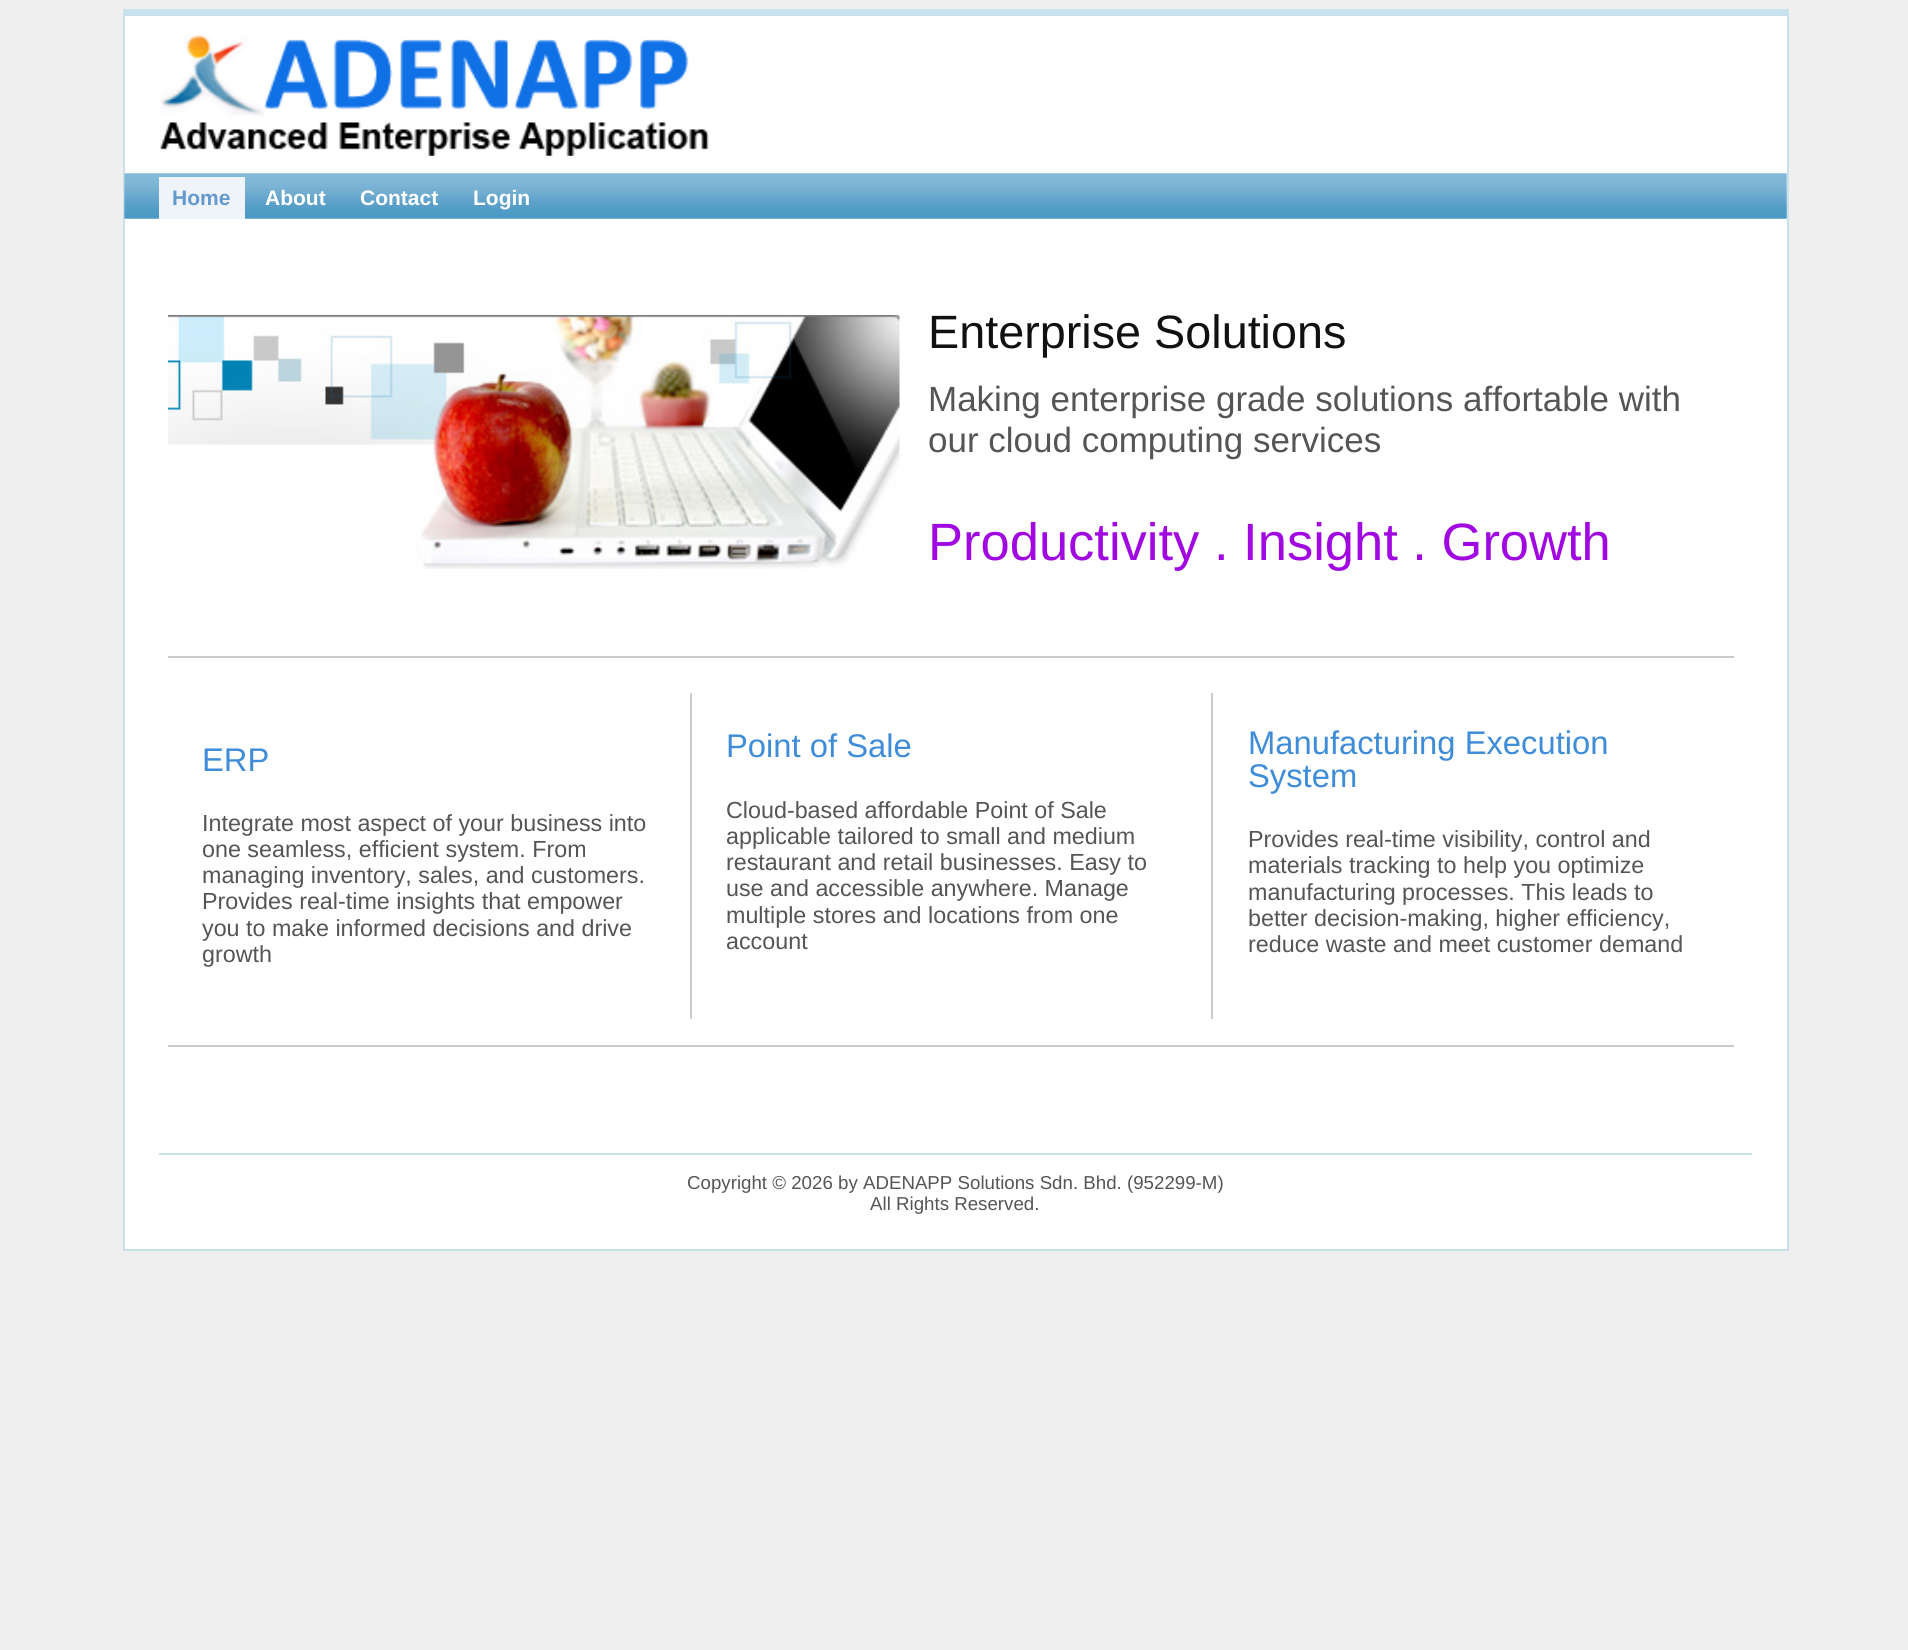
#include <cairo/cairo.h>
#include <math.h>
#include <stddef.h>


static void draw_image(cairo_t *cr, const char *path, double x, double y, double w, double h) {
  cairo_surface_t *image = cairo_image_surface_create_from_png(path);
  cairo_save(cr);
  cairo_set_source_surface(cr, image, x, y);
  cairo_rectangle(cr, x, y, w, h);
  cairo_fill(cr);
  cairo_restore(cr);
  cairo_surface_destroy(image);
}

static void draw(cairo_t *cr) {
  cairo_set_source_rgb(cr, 239 / 255.0, 239 / 255.0, 239 / 255.0);
  cairo_paint(cr);
  cairo_set_source_rgb(cr, 1, 1, 1);
  cairo_rectangle(cr, 125, 16, 1662, 1233);
  cairo_fill(cr);
  cairo_rectangle(cr, 124, 10, 1664, 1240);
  cairo_set_source_rgb(cr, 201 / 255.0, 224 / 255.0, 237 / 255.0);
  cairo_stroke(cr);
  cairo_rectangle(cr, 124, 11, 1663, 5);
  cairo_fill(cr);
  draw_image(cr, "images/1.png", 159, 34, 550, 122);
  cairo_set_source_rgb(cr, 1, 1, 1);
  cairo_rectangle(cr, 124, 173, 1, 46);
  cairo_fill(cr);
  draw_image(cr, "images/2.png", 124, 173, 1663, 46);
  cairo_set_source_rgb(cr, 239 / 255.0, 244 / 255.0, 250 / 255.0);
  cairo_rectangle(cr, 159, 177, 86, 42);
  cairo_fill(cr);
  draw_image(cr, "images/3.png", 168, 315, 350, 254);
  draw_image(cr, "images/4.png", 518, 315, 382, 254);
  cairo_set_source_rgb(cr, 204 / 255.0, 204 / 255.0, 204 / 255.0);
  cairo_rectangle(cr, 168, 656, 1566, 2);
  cairo_fill(cr);
  cairo_rectangle(cr, 168, 1045, 1566, 2);
  cairo_fill(cr);
  cairo_rectangle(cr, 690, 693, 2, 326);
  cairo_fill(cr);
  cairo_rectangle(cr, 1211, 693, 2, 326);
  cairo_fill(cr);
  cairo_set_source_rgb(cr, 201 / 255.0, 224 / 255.0, 237 / 255.0);
  cairo_rectangle(cr, 159, 1153, 1593, 2);
  cairo_fill(cr);
  cairo_select_font_face(cr, "Liberation Sans", CAIRO_FONT_SLANT_NORMAL, CAIRO_FONT_WEIGHT_BOLD);
  cairo_set_font_size(cr, 21);
  cairo_set_source_rgb(cr, 99 / 255.0, 153 / 255.0, 205 / 255.0);
  cairo_move_to(cr, 172, 205);
  cairo_show_text(cr, "Home");
  cairo_set_source_rgb(cr, 1, 1, 1);
  cairo_move_to(cr, 265, 205);
  cairo_show_text(cr, "About");
  cairo_move_to(cr, 360, 205);
  cairo_show_text(cr, "Contact");
  cairo_move_to(cr, 473, 205);
  cairo_show_text(cr, "Login");
  cairo_select_font_face(cr, "Liberation Sans", CAIRO_FONT_SLANT_NORMAL, CAIRO_FONT_WEIGHT_NORMAL);
  cairo_set_font_size(cr, 46.75);
  cairo_set_source_rgb(cr, 17 / 255.0, 17 / 255.0, 17 / 255.0);
  cairo_move_to(cr, 928, 348);
  cairo_show_text(cr, "Enterprise Solutions");
  cairo_set_font_size(cr, 35);
  cairo_set_source_rgb(cr, 85 / 255.0, 85 / 255.0, 85 / 255.0);
  cairo_move_to(cr, 928, 411);
  cairo_show_text(cr, "Making enterprise grade solutions affortable with");
  cairo_move_to(cr, 928, 452);
  cairo_show_text(cr, "our cloud computing services");
  cairo_set_font_size(cr, 52.5);
  cairo_set_source_rgb(cr, 161 / 255.0, 7 / 255.0, 225 / 255.0);
  cairo_move_to(cr, 928, 560);
  cairo_show_text(cr, "Productivity . Insight . Growth");
  cairo_set_font_size(cr, 32.75);
  cairo_set_source_rgb(cr, 63 / 255.0, 140 / 255.0, 217 / 255.0);
  cairo_move_to(cr, 202, 771);
  cairo_show_text(cr, "ERP");
  cairo_set_font_size(cr, 23.3);
  cairo_set_source_rgb(cr, 85 / 255.0, 85 / 255.0, 85 / 255.0);
  cairo_move_to(cr, 202, 831);
  cairo_show_text(cr, "Integrate most aspect of your business into");
  cairo_move_to(cr, 202, 857);
  cairo_show_text(cr, "one seamless, efficient system. From");
  cairo_move_to(cr, 202, 883);
  cairo_show_text(cr, "managing inventory, sales, and customers.");
  cairo_move_to(cr, 202, 909);
  cairo_show_text(cr, "Provides real-time insights that empower");
  cairo_move_to(cr, 202, 936);
  cairo_show_text(cr, "you to make informed decisions and drive");
  cairo_move_to(cr, 202, 962);
  cairo_show_text(cr, "growth");
  cairo_set_font_size(cr, 32.75);
  cairo_set_source_rgb(cr, 63 / 255.0, 140 / 255.0, 217 / 255.0);
  cairo_move_to(cr, 726, 757);
  cairo_show_text(cr, "Point of Sale");
  cairo_set_font_size(cr, 23.3);
  cairo_set_source_rgb(cr, 85 / 255.0, 85 / 255.0, 85 / 255.0);
  cairo_move_to(cr, 726, 818);
  cairo_show_text(cr, "Cloud-based affordable Point of Sale");
  cairo_move_to(cr, 726, 844);
  cairo_show_text(cr, "applicable tailored to small and medium");
  cairo_move_to(cr, 726, 870);
  cairo_show_text(cr, "restaurant and retail businesses. Easy to");
  cairo_move_to(cr, 726, 896);
  cairo_show_text(cr, "use and accessible anywhere. Manage");
  cairo_move_to(cr, 726, 923);
  cairo_show_text(cr, "multiple stores and locations from one");
  cairo_move_to(cr, 726, 949);
  cairo_show_text(cr, "account");
  cairo_set_font_size(cr, 32.75);
  cairo_set_source_rgb(cr, 63 / 255.0, 140 / 255.0, 217 / 255.0);
  cairo_move_to(cr, 1248, 754);
  cairo_show_text(cr, "Manufacturing Execution");
  cairo_move_to(cr, 1248, 787);
  cairo_show_text(cr, "System");
  cairo_set_font_size(cr, 23.3);
  cairo_set_source_rgb(cr, 85 / 255.0, 85 / 255.0, 85 / 255.0);
  cairo_move_to(cr, 1248, 847);
  cairo_show_text(cr, "Provides real-time visibility, control and");
  cairo_move_to(cr, 1248, 873);
  cairo_show_text(cr, "materials tracking to help you optimize");
  cairo_move_to(cr, 1248, 900);
  cairo_show_text(cr, "manufacturing processes. This leads to");
  cairo_move_to(cr, 1248, 926);
  cairo_show_text(cr, "better decision-making, higher efficiency,");
  cairo_move_to(cr, 1248, 952);
  cairo_show_text(cr, "reduce waste and meet customer demand");
  cairo_set_font_size(cr, 18.7);
  cairo_move_to(cr, 687, 1189);
  cairo_show_text(cr, "Copyright © 2026 by ADENAPP Solutions Sdn. Bhd. (952299-M)");
  cairo_move_to(cr, 870, 1210);
  cairo_show_text(cr, "All Rights Reserved.");
}

int main(void) {
  cairo_surface_t *surface = cairo_image_surface_create(CAIRO_FORMAT_RGB24, 1908, 1650);
  cairo_t *cr = cairo_create(surface);
  cairo_font_options_t *options = cairo_font_options_create();
  cairo_font_options_set_hint_metrics(options, CAIRO_HINT_METRICS_OFF);
  cairo_font_options_set_hint_style(options, CAIRO_HINT_STYLE_NONE);
  cairo_set_font_options(cr, options);
  cairo_set_miter_limit(cr, 4);
  draw(cr);
  cairo_surface_write_to_png(surface, "out.png");
  cairo_font_options_destroy(options);
  cairo_destroy(cr);
  cairo_surface_destroy(surface);
  return 0;
}
